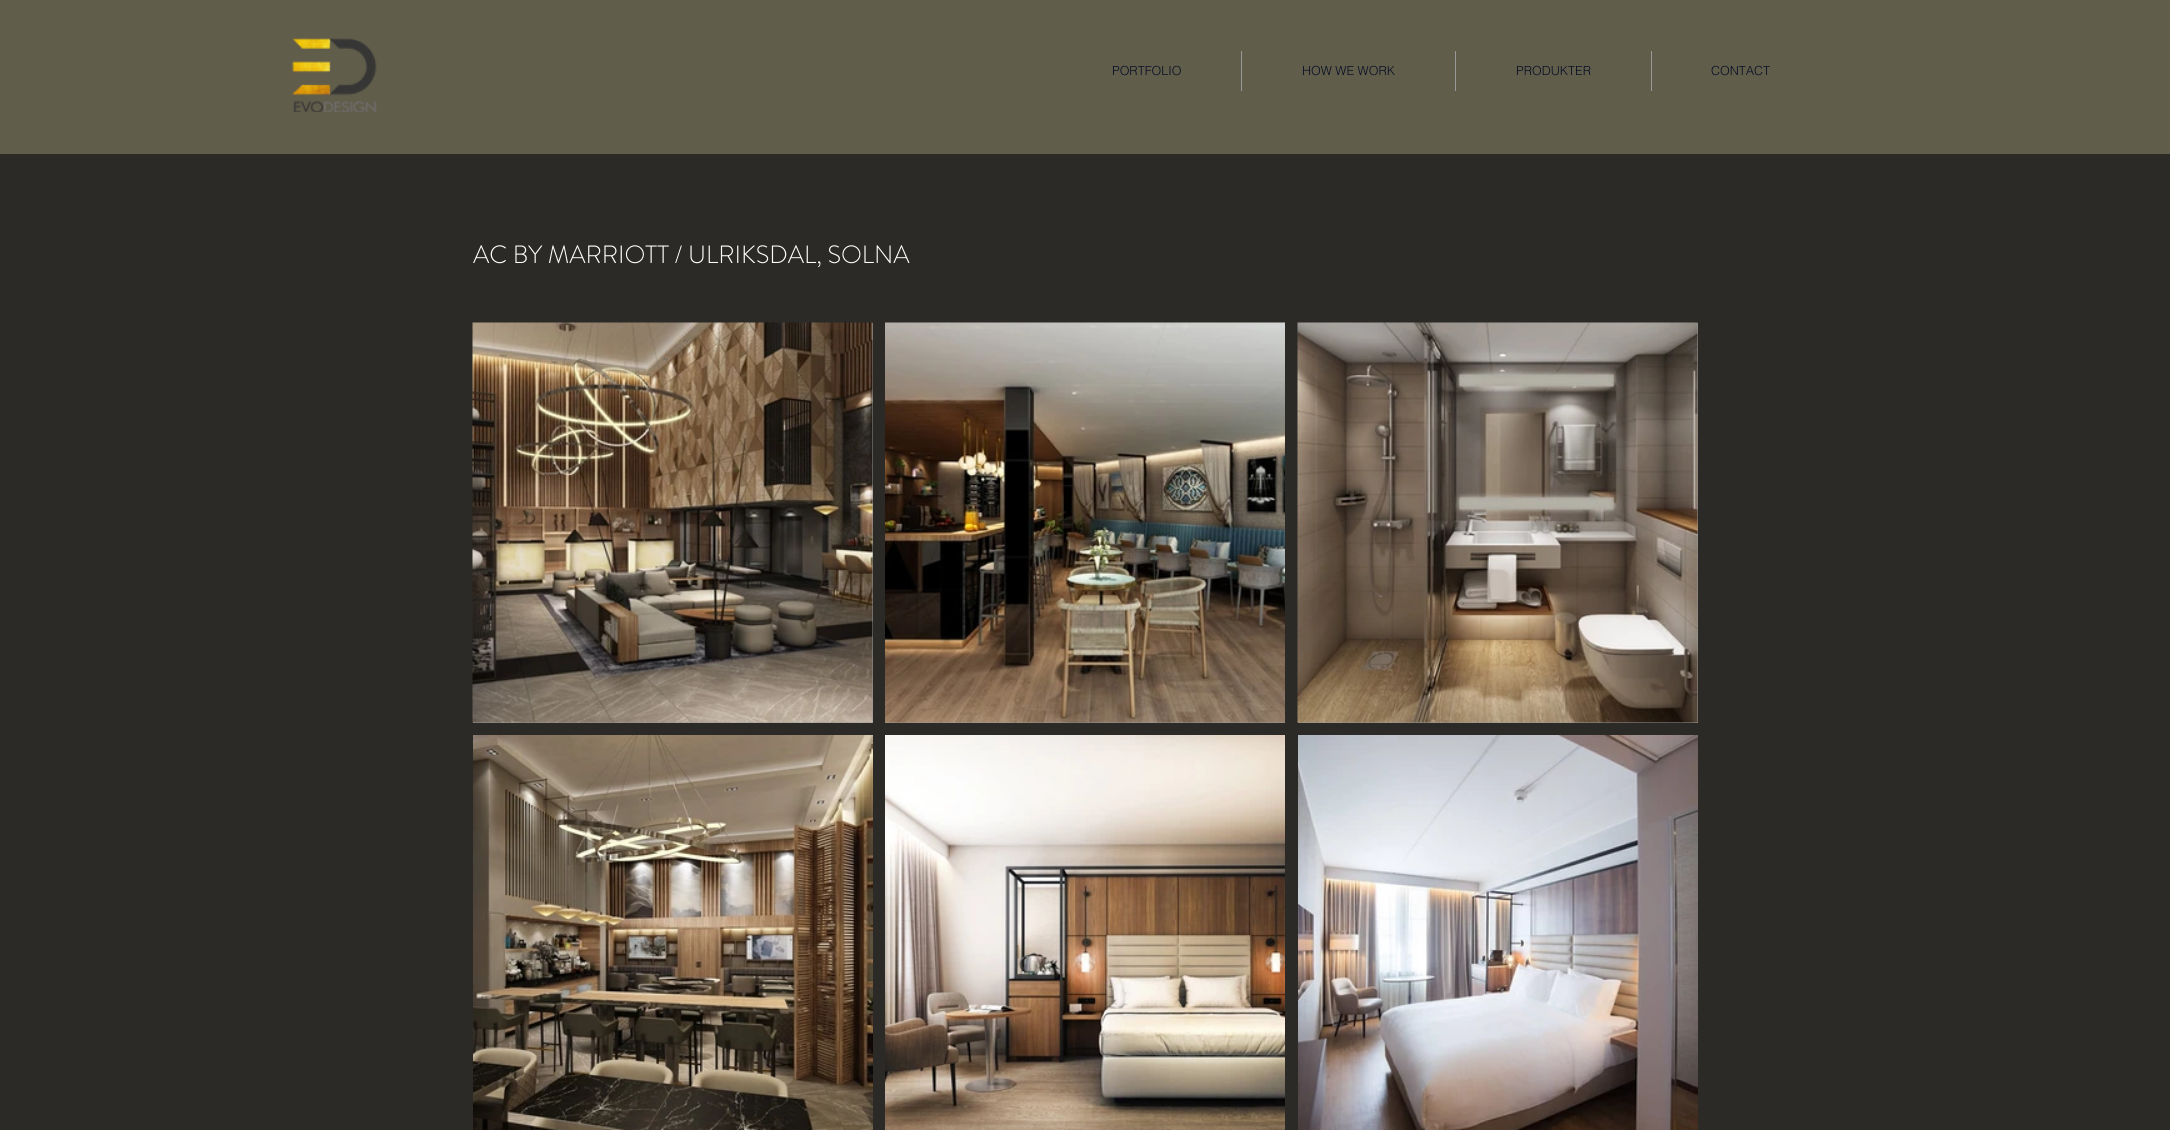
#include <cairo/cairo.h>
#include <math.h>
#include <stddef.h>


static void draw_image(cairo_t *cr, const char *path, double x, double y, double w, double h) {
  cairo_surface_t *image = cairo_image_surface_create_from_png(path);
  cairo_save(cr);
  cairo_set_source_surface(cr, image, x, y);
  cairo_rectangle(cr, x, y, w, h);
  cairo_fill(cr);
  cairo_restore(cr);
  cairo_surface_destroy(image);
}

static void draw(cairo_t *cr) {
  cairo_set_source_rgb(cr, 43 / 255.0, 42 / 255.0, 39 / 255.0);
  cairo_paint(cr);
  cairo_set_source_rgba(cr, 186 / 255.0, 178 / 255.0, 136 / 255.0, 0.38);
  cairo_rectangle(cr, 0, 0, 2170, 154);
  cairo_fill(cr);
  draw_image(cr, "images/1.png", 292, 38, 85, 74);
  cairo_set_source_rgb(cr, 153 / 255.0, 153 / 255.0, 153 / 255.0);
  cairo_rectangle(cr, 1241, 51, 1, 40);
  cairo_fill(cr);
  cairo_rectangle(cr, 1455, 51, 1, 40);
  cairo_fill(cr);
  cairo_rectangle(cr, 1651, 51, 1, 40);
  cairo_fill(cr);
  cairo_rectangle(cr, 473, 323, 400, 400);
  cairo_fill(cr);
  draw_image(cr, "images/2.png", 472, 322, 401, 401);
  cairo_rectangle(cr, 885, 722, 400, 1);
  cairo_fill(cr);
  draw_image(cr, "images/3.png", 885, 322, 400, 401);
  cairo_rectangle(cr, 1298, 323, 400, 400);
  cairo_fill(cr);
  draw_image(cr, "images/4.png", 1297, 322, 401, 401);
  draw_image(cr, "images/5.png", 473, 735, 400, 395);
  draw_image(cr, "images/6.png", 885, 735, 400, 395);
  draw_image(cr, "images/7.png", 1298, 735, 400, 395);
  cairo_select_font_face(cr, "helvetica Light", CAIRO_FONT_SLANT_NORMAL, CAIRO_FONT_WEIGHT_NORMAL);
  cairo_set_font_size(cr, 12.5);
  cairo_set_source_rgb(cr, 6 / 255.0, 14 / 255.0, 37 / 255.0);
  cairo_move_to(cr, 1112, 75);
  cairo_show_text(cr, "PORTFOLIO");
  cairo_move_to(cr, 1302, 75);
  cairo_show_text(cr, "HOW WE WORK");
  cairo_move_to(cr, 1516, 75);
  cairo_show_text(cr, "PRODUKTER");
  cairo_move_to(cr, 1711, 75);
  cairo_show_text(cr, "CONTACT");
  cairo_select_font_face(cr, "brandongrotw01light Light", CAIRO_FONT_SLANT_NORMAL, CAIRO_FONT_WEIGHT_NORMAL);
  cairo_set_font_size(cr, 25);
  cairo_set_source_rgb(cr, 1, 1, 254 / 255.0);
  cairo_move_to(cr, 473, 263);
  cairo_show_text(cr, "AC BY MARRIOTT / ULRIKSDAL, SOLNA");
}

int main(void) {
  cairo_surface_t *surface = cairo_image_surface_create(CAIRO_FORMAT_RGB24, 2170, 1130);
  cairo_t *cr = cairo_create(surface);
  cairo_font_options_t *options = cairo_font_options_create();
  cairo_font_options_set_hint_metrics(options, CAIRO_HINT_METRICS_OFF);
  cairo_font_options_set_hint_style(options, CAIRO_HINT_STYLE_NONE);
  cairo_set_font_options(cr, options);
  cairo_set_miter_limit(cr, 4);
  draw(cr);
  cairo_surface_write_to_png(surface, "out.png");
  cairo_font_options_destroy(options);
  cairo_destroy(cr);
  cairo_surface_destroy(surface);
  return 0;
}
